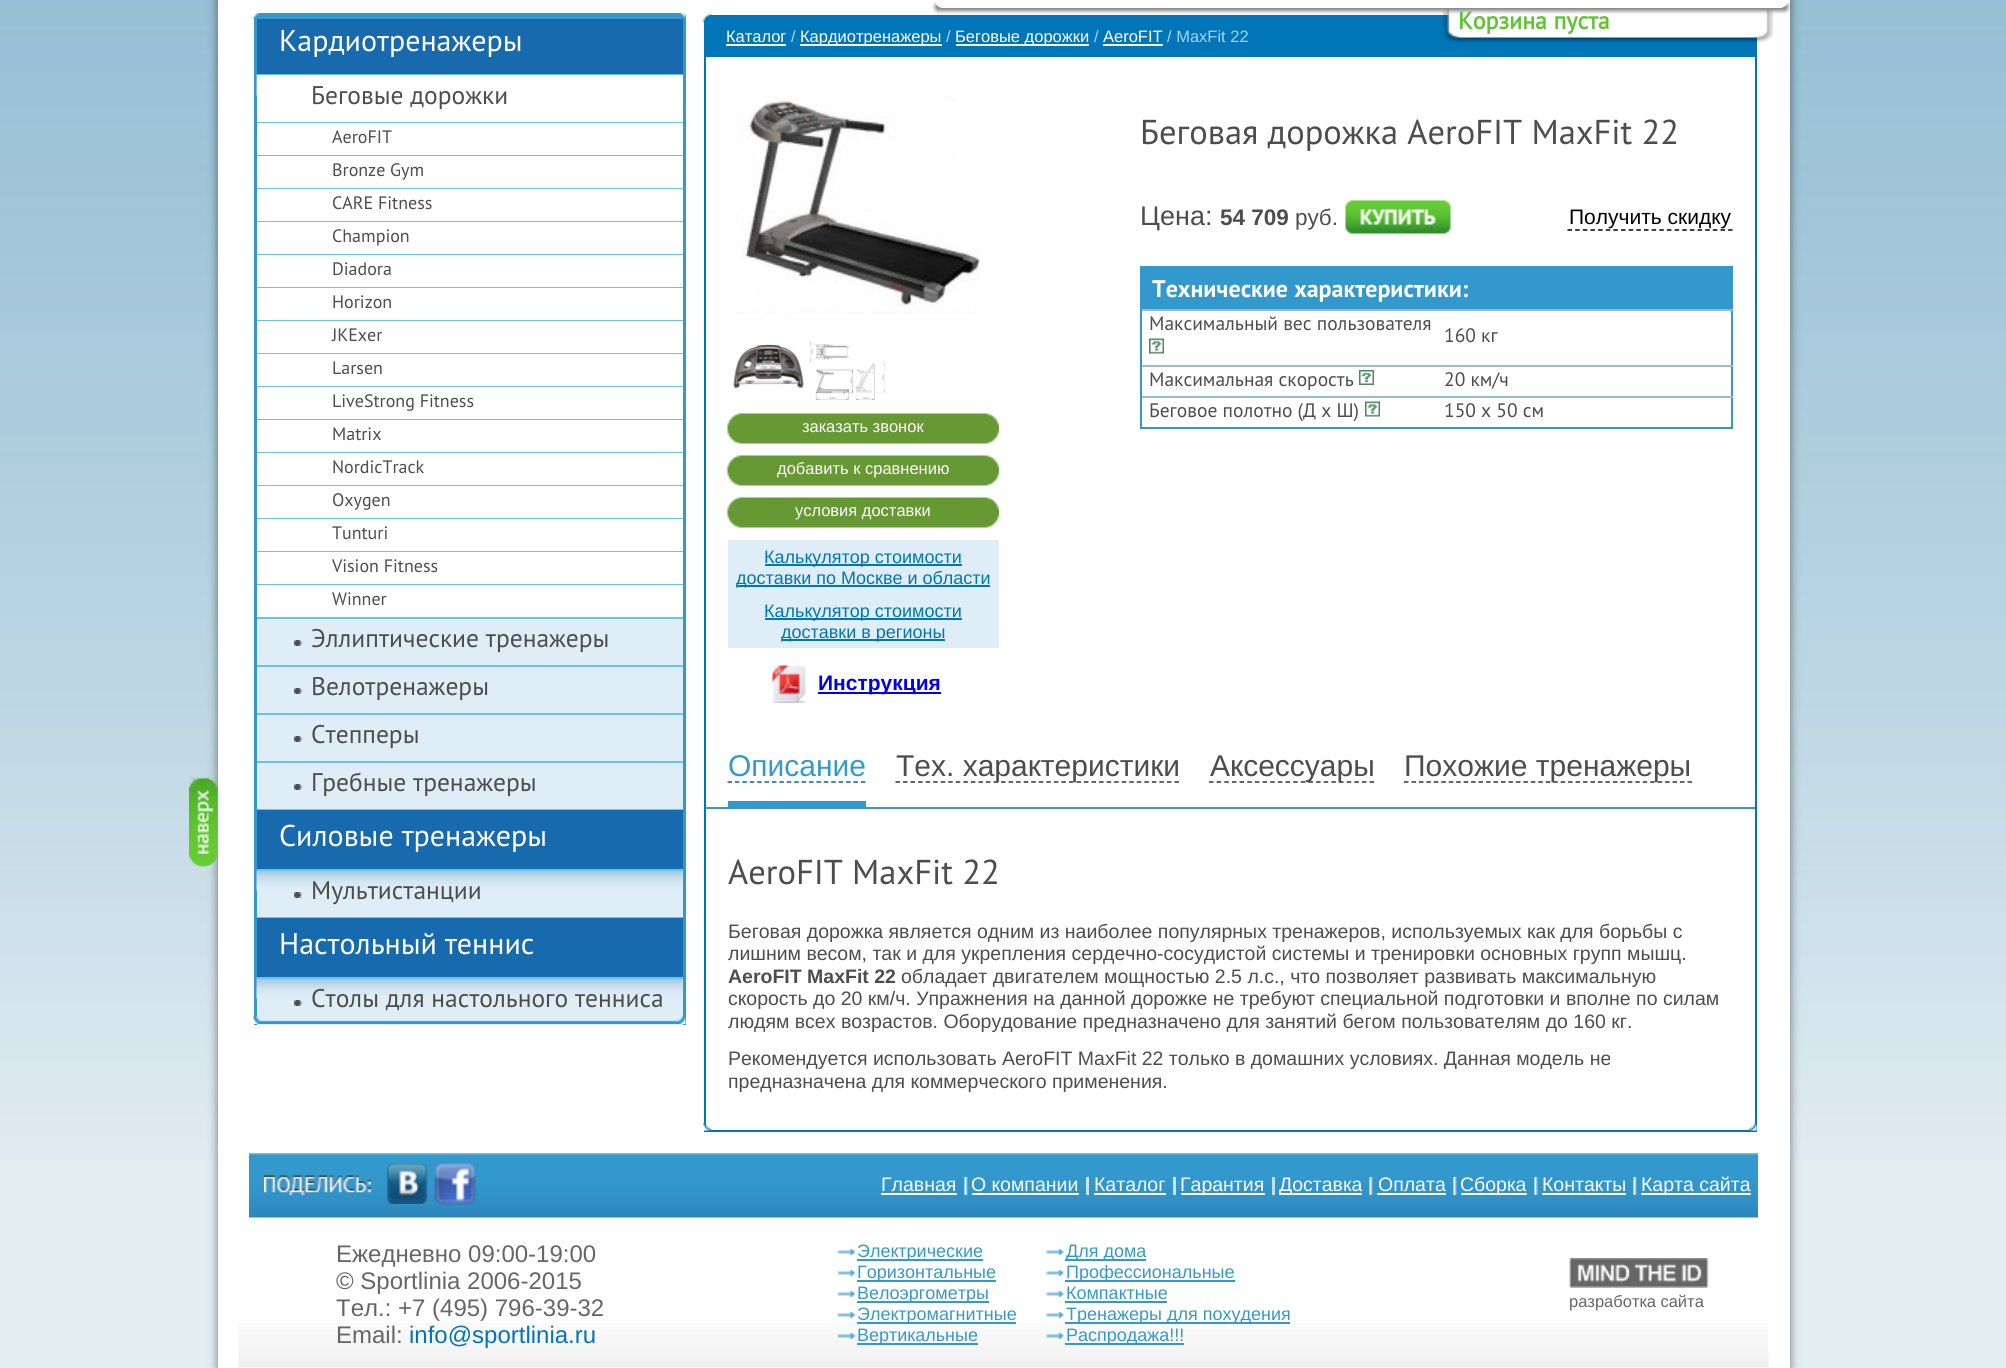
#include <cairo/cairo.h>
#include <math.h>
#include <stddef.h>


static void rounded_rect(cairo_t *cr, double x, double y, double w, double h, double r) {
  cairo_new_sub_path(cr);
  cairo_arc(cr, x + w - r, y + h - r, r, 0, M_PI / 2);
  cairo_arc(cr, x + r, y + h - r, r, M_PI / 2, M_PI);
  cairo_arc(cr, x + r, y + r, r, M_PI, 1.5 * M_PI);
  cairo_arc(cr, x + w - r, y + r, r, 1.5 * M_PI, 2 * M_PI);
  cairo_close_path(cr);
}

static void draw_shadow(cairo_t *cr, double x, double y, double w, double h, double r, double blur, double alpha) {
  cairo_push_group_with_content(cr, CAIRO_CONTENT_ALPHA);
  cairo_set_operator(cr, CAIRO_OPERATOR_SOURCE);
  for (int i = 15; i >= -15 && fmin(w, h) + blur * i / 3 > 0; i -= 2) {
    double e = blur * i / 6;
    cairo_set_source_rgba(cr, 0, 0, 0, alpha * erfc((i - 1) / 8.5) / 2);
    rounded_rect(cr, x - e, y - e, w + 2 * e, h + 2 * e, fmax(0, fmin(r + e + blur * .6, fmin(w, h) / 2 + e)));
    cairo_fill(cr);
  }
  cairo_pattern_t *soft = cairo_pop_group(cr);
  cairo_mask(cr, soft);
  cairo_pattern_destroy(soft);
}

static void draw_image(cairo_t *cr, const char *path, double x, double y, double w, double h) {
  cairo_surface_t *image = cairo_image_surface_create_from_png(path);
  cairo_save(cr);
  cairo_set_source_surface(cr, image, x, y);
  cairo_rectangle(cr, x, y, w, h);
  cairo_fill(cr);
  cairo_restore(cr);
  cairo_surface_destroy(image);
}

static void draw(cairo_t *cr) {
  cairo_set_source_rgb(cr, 229 / 255.0, 238 / 255.0, 243 / 255.0);
  cairo_paint(cr);
  draw_image(cr, "images/1.png", 0, 0, 2006, 1160);
  cairo_set_source_rgb(cr, 0, 0, 0);
  draw_shadow(cr, 218, -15, 1572, 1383, 0, 5, 0.5);
  cairo_set_source_rgb(cr, 1, 1, 1);
  cairo_rectangle(cr, 218, 0, 1572, 1368);
  cairo_fill(cr);
  draw_image(cr, "images/2.png", 189, 776, 29, 91);
  cairo_set_source_rgb(cr, 51 / 255.0, 153 / 255.0, 204 / 255.0);
  cairo_rectangle(cr, 683, 14, 3, 1011);
  cairo_fill(cr);
  cairo_rectangle(cr, 254, 14, 3, 1011);
  cairo_fill(cr);
  draw_image(cr, "images/3.png", 253, 13, 433, 6);
  cairo_set_source_rgb(cr, 23 / 255.0, 106 / 255.0, 174 / 255.0);
  cairo_rectangle(cr, 257, 19, 426, 55);
  cairo_fill(cr);
  draw_image(cr, "images/4.png", 256, 74, 1, 22);
  cairo_set_source_rgb(cr, 105 / 255.0, 193 / 255.0, 237 / 255.0);
  cairo_rectangle(cr, 257, 74, 426, 1);
  cairo_fill(cr);
  draw_image(cr, "images/5.png", 256, 122, 1, 13);
  cairo_rectangle(cr, 257, 122, 426, 1);
  cairo_fill(cr);
  cairo_rectangle(cr, 257, 155, 426, 1);
  cairo_fill(cr);
  cairo_rectangle(cr, 257, 188, 426, 1);
  cairo_fill(cr);
  cairo_rectangle(cr, 257, 221, 426, 1);
  cairo_fill(cr);
  cairo_rectangle(cr, 257, 254, 426, 1);
  cairo_fill(cr);
  cairo_rectangle(cr, 257, 287, 426, 1);
  cairo_fill(cr);
  cairo_rectangle(cr, 257, 320, 426, 1);
  cairo_fill(cr);
  cairo_rectangle(cr, 257, 353, 426, 1);
  cairo_fill(cr);
  cairo_rectangle(cr, 257, 386, 426, 1);
  cairo_fill(cr);
  cairo_rectangle(cr, 257, 419, 426, 1);
  cairo_fill(cr);
  cairo_rectangle(cr, 257, 452, 426, 1);
  cairo_fill(cr);
  cairo_rectangle(cr, 257, 485, 426, 1);
  cairo_fill(cr);
  cairo_rectangle(cr, 257, 518, 426, 1);
  cairo_fill(cr);
  cairo_rectangle(cr, 257, 551, 426, 1);
  cairo_fill(cr);
  cairo_rectangle(cr, 257, 584, 426, 1);
  cairo_fill(cr);
  cairo_set_source_rgb(cr, 223 / 255.0, 237 / 255.0, 246 / 255.0);
  cairo_rectangle(cr, 257, 619, 426, 46);
  cairo_fill(cr);
  cairo_set_source_rgb(cr, 105 / 255.0, 193 / 255.0, 237 / 255.0);
  cairo_rectangle(cr, 257, 617, 426, 2);
  cairo_fill(cr);
  draw_image(cr, "images/6.png", 294, 640, 8, 6);
  cairo_set_source_rgb(cr, 223 / 255.0, 237 / 255.0, 246 / 255.0);
  cairo_rectangle(cr, 257, 667, 426, 46);
  cairo_fill(cr);
  cairo_set_source_rgb(cr, 105 / 255.0, 193 / 255.0, 237 / 255.0);
  cairo_rectangle(cr, 257, 665, 426, 2);
  cairo_fill(cr);
  draw_image(cr, "images/6.png", 294, 688, 8, 6);
  cairo_set_source_rgb(cr, 223 / 255.0, 237 / 255.0, 246 / 255.0);
  cairo_rectangle(cr, 257, 715, 426, 46);
  cairo_fill(cr);
  cairo_set_source_rgb(cr, 105 / 255.0, 193 / 255.0, 237 / 255.0);
  cairo_rectangle(cr, 257, 713, 426, 2);
  cairo_fill(cr);
  draw_image(cr, "images/6.png", 294, 736, 8, 6);
  cairo_set_source_rgb(cr, 223 / 255.0, 237 / 255.0, 246 / 255.0);
  cairo_rectangle(cr, 257, 763, 426, 46);
  cairo_fill(cr);
  cairo_set_source_rgb(cr, 105 / 255.0, 193 / 255.0, 237 / 255.0);
  cairo_rectangle(cr, 257, 761, 426, 2);
  cairo_fill(cr);
  draw_image(cr, "images/6.png", 294, 784, 8, 6);
  cairo_rectangle(cr, 257, 809, 426, 1);
  cairo_fill(cr);
  cairo_set_source_rgb(cr, 23 / 255.0, 106 / 255.0, 174 / 255.0);
  cairo_rectangle(cr, 257, 810, 426, 59);
  cairo_fill(cr);
  cairo_set_source_rgb(cr, 223 / 255.0, 237 / 255.0, 246 / 255.0);
  cairo_rectangle(cr, 257, 871, 426, 46);
  cairo_fill(cr);
  draw_image(cr, "images/7.png", 256, 869, 427, 22);
  cairo_set_source_rgb(cr, 105 / 255.0, 193 / 255.0, 237 / 255.0);
  cairo_rectangle(cr, 257, 869, 426, 2);
  cairo_fill(cr);
  draw_image(cr, "images/6.png", 294, 892, 8, 6);
  cairo_rectangle(cr, 257, 917, 426, 1);
  cairo_fill(cr);
  cairo_set_source_rgb(cr, 23 / 255.0, 106 / 255.0, 174 / 255.0);
  cairo_rectangle(cr, 257, 918, 426, 59);
  cairo_fill(cr);
  cairo_set_source_rgb(cr, 223 / 255.0, 237 / 255.0, 246 / 255.0);
  cairo_rectangle(cr, 257, 979, 426, 46);
  cairo_fill(cr);
  draw_image(cr, "images/7.png", 256, 977, 427, 22);
  cairo_set_source_rgb(cr, 105 / 255.0, 193 / 255.0, 237 / 255.0);
  cairo_rectangle(cr, 257, 977, 426, 2);
  cairo_fill(cr);
  draw_image(cr, "images/6.png", 294, 1000, 8, 6);
  draw_image(cr, "images/8.png", 253, 1016, 433, 8);
  cairo_set_source_rgb(cr, 0, 117 / 255.0, 183 / 255.0);
  cairo_rectangle(cr, 1755, 35, 2, 1096);
  cairo_fill(cr);
  cairo_rectangle(cr, 706, 15, 1049, 42);
  cairo_fill(cr);
  draw_image(cr, "images/9.png", 1443, 8, 330, 35);
  cairo_set_source_rgb(cr, 0, 0, 0);
  draw_shadow(cr, 935, 3, 853, 8, 8, 2, 0.5);
  cairo_set_source_rgb(cr, 1, 1, 1);
  cairo_new_path(cr);
  cairo_move_to(cr, 935, 0);
  cairo_line_to(cr, 1788, 0);
  cairo_curve_to(cr, 1788, 4.5, 1784.5, 8, 1780, 8);
  cairo_line_to(cr, 943, 8);
  cairo_curve_to(cr, 938.5, 8, 935, 4.5, 935, 0);
  cairo_close_path(cr);
  cairo_fill(cr);
  cairo_set_source_rgb(cr, 0, 117 / 255.0, 183 / 255.0);
  cairo_rectangle(cr, 704, 1130, 1053, 2);
  cairo_fill(cr);
  cairo_rectangle(cr, 704, 15, 2, 1116);
  cairo_fill(cr);
  draw_image(cr, "images/10.png", 703, 14, 8, 8);
  cairo_set_source_rgb(cr, 1, 1, 1);
  cairo_rectangle(cr, 726, 44, 60, 2);
  cairo_fill(cr);
  cairo_rectangle(cr, 800, 44, 142, 2);
  cairo_fill(cr);
  cairo_rectangle(cr, 956, 44, 133, 2);
  cairo_fill(cr);
  cairo_rectangle(cr, 1103, 44, 60, 2);
  cairo_fill(cr);
  draw_image(cr, "images/11.png", 1345, 200, 106, 34);
  cairo_new_path(cr);
  cairo_move_to(cr, 1567.5, 230);
  cairo_line_to(cr, 1732.5, 230);
  cairo_set_source_rgb(cr, 0, 0, 0);
  cairo_set_line_width(cr, 1.5);
  cairo_set_dash(cr, (double[]){4.5, 3.15}, 2, 0);
  cairo_stroke(cr);
  cairo_rectangle(cr, 1141, 267, 591, 161);
  cairo_set_source_rgb(cr, 51 / 255.0, 153 / 255.0, 204 / 255.0);
  cairo_set_line_width(cr, 2);
  cairo_set_dash(cr, NULL, 0, 0);
  cairo_stroke(cr);
  cairo_rectangle(cr, 1142, 268, 589, 41);
  cairo_fill(cr);
  draw_image(cr, "images/12.png", 1149, 338, 15, 16);
  cairo_set_source_rgb(cr, 151 / 255.0, 188 / 255.0, 207 / 255.0);
  cairo_rectangle(cr, 1142, 309, 591, 2);
  cairo_fill(cr);
  draw_image(cr, "images/13.png", 1359, 370, 15, 15);
  cairo_rectangle(cr, 1142, 365, 591, 2);
  cairo_fill(cr);
  draw_image(cr, "images/12.png", 1365, 401, 15, 16);
  cairo_rectangle(cr, 1142, 396, 591, 2);
  cairo_fill(cr);
  draw_image(cr, "images/14.png", 734, 97, 246, 217);
  draw_image(cr, "images/15.png", 733, 344, 71, 45);
  draw_image(cr, "images/16.png", 810, 340, 75, 60);
  draw_image(cr, "images/17.png", 727, 413, 272, 31);
  draw_image(cr, "images/17.png", 727, 455, 272, 31);
  draw_image(cr, "images/17.png", 727, 497, 272, 31);
  cairo_set_source_rgb(cr, 223 / 255.0, 237 / 255.0, 246 / 255.0);
  cairo_rectangle(cr, 728, 540, 271, 108);
  cairo_fill(cr);
  cairo_set_source_rgb(cr, 0, 117 / 255.0, 183 / 255.0);
  cairo_rectangle(cr, 765, 564, 197, 2);
  cairo_fill(cr);
  cairo_rectangle(cr, 737, 585, 253, 2);
  cairo_fill(cr);
  cairo_rectangle(cr, 765, 618, 197, 2);
  cairo_fill(cr);
  cairo_rectangle(cr, 782, 639, 163, 2);
  cairo_fill(cr);
  draw_image(cr, "images/18.png", 772, 665, 34, 38);
  cairo_set_source_rgb(cr, 0, 0, 238 / 255.0);
  cairo_rectangle(cr, 818, 692, 123, 2);
  cairo_fill(cr);
  cairo_set_source_rgb(cr, 51 / 255.0, 153 / 255.0, 204 / 255.0);
  cairo_rectangle(cr, 705, 807, 1050, 2);
  cairo_fill(cr);
  cairo_rectangle(cr, 728, 801, 138, 6);
  cairo_fill(cr);
  cairo_new_path(cr);
  cairo_move_to(cr, 727.5, 782);
  cairo_line_to(cr, 865.5, 782);
  cairo_set_source_rgb(cr, 0, 102 / 255.0, 155 / 255.0);
  cairo_set_line_width(cr, 1.5);
  cairo_set_dash(cr, (double[]){4.5, 2.91}, 2, 0);
  cairo_stroke(cr);
  cairo_new_path(cr);
  cairo_move_to(cr, 895.5, 782);
  cairo_line_to(cr, 1179, 782);
  cairo_set_source_rgb(cr, 51 / 255.0, 51 / 255.0, 51 / 255.0);
  cairo_set_dash(cr, (double[]){4.5, 3.04}, 2, 0);
  cairo_stroke(cr);
  cairo_new_path(cr);
  cairo_move_to(cr, 1209, 782);
  cairo_line_to(cr, 1374, 782);
  cairo_set_dash(cr, (double[]){4.5, 3.15}, 2, 0);
  cairo_stroke(cr);
  cairo_new_path(cr);
  cairo_move_to(cr, 1404, 782);
  cairo_line_to(cr, 1692, 782);
  cairo_set_dash(cr, (double[]){4.5, 2.96}, 2, 0);
  cairo_stroke(cr);
  draw_image(cr, "images/19.png", 703, 1123, 8, 8);
  draw_image(cr, "images/20.png", 1749, 1123, 8, 8);
  draw_image(cr, "images/21.png", 238, 1323, 1531, 45);
  draw_image(cr, "images/22.png", 249, 1153, 1509, 65);
  draw_image(cr, "images/23.png", 264, 1175, 108, 20);
  draw_image(cr, "images/24.png", 387, 1163, 41, 41);
  draw_image(cr, "images/25.png", 433, 1163, 43, 43);
  cairo_set_source_rgb(cr, 1, 1, 1);
  cairo_rectangle(cr, 881, 1193, 76, 2);
  cairo_fill(cr);
  draw_image(cr, "images/26.png", 964, 1177, 4, 18);
  cairo_rectangle(cr, 972, 1193, 107, 2);
  cairo_fill(cr);
  cairo_set_source_rgb(cr, 201 / 255.0, 227 / 255.0, 241 / 255.0);
  cairo_rectangle(cr, 1086, 1177, 3, 18);
  cairo_fill(cr);
  cairo_set_source_rgb(cr, 1, 1, 1);
  cairo_rectangle(cr, 1094, 1193, 72, 2);
  cairo_fill(cr);
  cairo_set_source_rgb(cr, 201 / 255.0, 227 / 255.0, 241 / 255.0);
  cairo_rectangle(cr, 1173, 1177, 3, 18);
  cairo_fill(cr);
  cairo_set_source_rgb(cr, 1, 1, 1);
  cairo_rectangle(cr, 1181, 1193, 84, 2);
  cairo_fill(cr);
  cairo_set_source_rgb(cr, 193 / 255.0, 224 / 255.0, 239 / 255.0);
  cairo_rectangle(cr, 1272, 1177, 3, 18);
  cairo_fill(cr);
  cairo_set_source_rgb(cr, 1, 1, 1);
  cairo_rectangle(cr, 1280, 1193, 82, 2);
  cairo_fill(cr);
  draw_image(cr, "images/26.png", 1369, 1177, 4, 18);
  cairo_rectangle(cr, 1377, 1193, 69, 2);
  cairo_fill(cr);
  draw_image(cr, "images/26.png", 1453, 1177, 4, 18);
  cairo_rectangle(cr, 1461, 1193, 66, 2);
  cairo_fill(cr);
  draw_image(cr, "images/26.png", 1534, 1177, 4, 18);
  cairo_rectangle(cr, 1542, 1193, 84, 2);
  cairo_fill(cr);
  draw_image(cr, "images/26.png", 1633, 1177, 4, 18);
  cairo_rectangle(cr, 1641, 1193, 110, 2);
  cairo_fill(cr);
  draw_image(cr, "images/27.png", 837, 1249, 18, 6);
  cairo_set_source_rgb(cr, 51 / 255.0, 153 / 255.0, 204 / 255.0);
  cairo_rectangle(cr, 857, 1259, 126, 2);
  cairo_fill(cr);
  draw_image(cr, "images/27.png", 837, 1270, 18, 6);
  cairo_rectangle(cr, 857, 1280, 139, 2);
  cairo_fill(cr);
  draw_image(cr, "images/27.png", 837, 1291, 18, 6);
  cairo_rectangle(cr, 857, 1301, 132, 2);
  cairo_fill(cr);
  draw_image(cr, "images/27.png", 837, 1312, 18, 6);
  cairo_rectangle(cr, 857, 1322, 159, 2);
  cairo_fill(cr);
  draw_image(cr, "images/28.png", 837, 1333, 18, 6);
  cairo_rectangle(cr, 857, 1343, 121, 2);
  cairo_fill(cr);
  draw_image(cr, "images/29.png", 1045, 1249, 19, 6);
  cairo_rectangle(cr, 1065, 1259, 81, 2);
  cairo_fill(cr);
  draw_image(cr, "images/29.png", 1045, 1270, 19, 6);
  cairo_rectangle(cr, 1065, 1280, 170, 2);
  cairo_fill(cr);
  draw_image(cr, "images/29.png", 1045, 1291, 19, 6);
  cairo_rectangle(cr, 1065, 1301, 102, 2);
  cairo_fill(cr);
  draw_image(cr, "images/29.png", 1045, 1312, 19, 6);
  cairo_rectangle(cr, 1065, 1322, 225, 2);
  cairo_fill(cr);
  draw_image(cr, "images/30.png", 1045, 1333, 19, 6);
  cairo_rectangle(cr, 1065, 1343, 119, 2);
  cairo_fill(cr);
  draw_image(cr, "images/31.png", 1569, 1258, 140, 30);
  cairo_select_font_face(cr, "PT Sans", CAIRO_FONT_SLANT_NORMAL, CAIRO_FONT_WEIGHT_NORMAL);
  cairo_set_font_size(cr, 30);
  cairo_set_source_rgb(cr, 1, 1, 1);
  cairo_move_to(cr, 279, 51);
  cairo_show_text(cr, "Кардиотренажеры");
  cairo_set_font_size(cr, 25.5);
  cairo_set_source_rgb(cr, 77 / 255.0, 77 / 255.0, 77 / 255.0);
  cairo_move_to(cr, 311, 104);
  cairo_show_text(cr, "Беговые дорожки");
  cairo_set_font_size(cr, 18);
  cairo_move_to(cr, 332, 143);
  cairo_show_text(cr, "AeroFIT");
  cairo_move_to(cr, 332, 176);
  cairo_show_text(cr, "Bronze Gym");
  cairo_move_to(cr, 332, 209);
  cairo_show_text(cr, "CARE Fitness");
  cairo_move_to(cr, 332, 242);
  cairo_show_text(cr, "Champion");
  cairo_move_to(cr, 332, 275);
  cairo_show_text(cr, "Diadora");
  cairo_move_to(cr, 332, 308);
  cairo_show_text(cr, "Horizon");
  cairo_move_to(cr, 332, 341);
  cairo_show_text(cr, "JKExer");
  cairo_move_to(cr, 332, 374);
  cairo_show_text(cr, "Larsen");
  cairo_move_to(cr, 332, 407);
  cairo_show_text(cr, "LiveStrong Fitness");
  cairo_move_to(cr, 332, 440);
  cairo_show_text(cr, "Matrix");
  cairo_move_to(cr, 332, 473);
  cairo_show_text(cr, "NordicTrack");
  cairo_move_to(cr, 332, 506);
  cairo_show_text(cr, "Oxygen");
  cairo_move_to(cr, 332, 539);
  cairo_show_text(cr, "Tunturi");
  cairo_move_to(cr, 332, 572);
  cairo_show_text(cr, "Vision Fitness");
  cairo_move_to(cr, 332, 605);
  cairo_show_text(cr, "Winner");
  cairo_set_font_size(cr, 25.5);
  cairo_move_to(cr, 311, 647);
  cairo_show_text(cr, "Эллиптические тренажеры");
  cairo_move_to(cr, 311, 695);
  cairo_show_text(cr, "Велотренажеры");
  cairo_move_to(cr, 311, 743);
  cairo_show_text(cr, "Степперы");
  cairo_move_to(cr, 311, 791);
  cairo_show_text(cr, "Гребные тренажеры");
  cairo_set_font_size(cr, 30);
  cairo_set_source_rgb(cr, 1, 1, 1);
  cairo_move_to(cr, 279, 846);
  cairo_show_text(cr, "Силовые тренажеры");
  cairo_set_font_size(cr, 25.5);
  cairo_set_source_rgb(cr, 77 / 255.0, 77 / 255.0, 77 / 255.0);
  cairo_move_to(cr, 311, 899);
  cairo_show_text(cr, "Мультистанции");
  cairo_set_font_size(cr, 30);
  cairo_set_source_rgb(cr, 1, 1, 1);
  cairo_move_to(cr, 279, 954);
  cairo_show_text(cr, "Настольный теннис");
  cairo_set_font_size(cr, 25.5);
  cairo_set_source_rgb(cr, 77 / 255.0, 77 / 255.0, 77 / 255.0);
  cairo_move_to(cr, 311, 1007);
  cairo_show_text(cr, "Столы для настольного тенниса");
  cairo_select_font_face(cr, "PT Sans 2", CAIRO_FONT_SLANT_NORMAL, CAIRO_FONT_WEIGHT_BOLD);
  cairo_set_font_size(cr, 24);
  cairo_set_source_rgb(cr, 96 / 255.0, 197 / 255.0, 50 / 255.0);
  cairo_move_to(cr, 1458, 29);
  cairo_show_text(cr, "Корзина пуста");
  cairo_select_font_face(cr, "Liberation Sans", CAIRO_FONT_SLANT_NORMAL, CAIRO_FONT_WEIGHT_NORMAL);
  cairo_set_font_size(cr, 16.5);
  cairo_set_source_rgb(cr, 1, 1, 1);
  cairo_move_to(cr, 726, 42);
  cairo_show_text(cr, "Каталог");
  cairo_set_source_rgb(cr, 168 / 255.0, 213 / 255.0, 253 / 255.0);
  cairo_move_to(cr, 791, 42);
  cairo_show_text(cr, "/");
  cairo_set_source_rgb(cr, 1, 1, 1);
  cairo_move_to(cr, 800, 42);
  cairo_show_text(cr, "Кардиотренажеры");
  cairo_set_source_rgb(cr, 168 / 255.0, 213 / 255.0, 253 / 255.0);
  cairo_move_to(cr, 946, 42);
  cairo_show_text(cr, "/");
  cairo_set_source_rgb(cr, 1, 1, 1);
  cairo_move_to(cr, 955, 42);
  cairo_show_text(cr, "Беговые дорожки");
  cairo_set_source_rgb(cr, 168 / 255.0, 213 / 255.0, 253 / 255.0);
  cairo_move_to(cr, 1094, 42);
  cairo_show_text(cr, "/");
  cairo_set_source_rgb(cr, 1, 1, 1);
  cairo_move_to(cr, 1103, 42);
  cairo_show_text(cr, "AeroFIT");
  cairo_set_source_rgb(cr, 168 / 255.0, 213 / 255.0, 253 / 255.0);
  cairo_move_to(cr, 1167, 42);
  cairo_show_text(cr, "/ MaxFit 22");
  cairo_select_font_face(cr, "PT Sans", CAIRO_FONT_SLANT_NORMAL, CAIRO_FONT_WEIGHT_NORMAL);
  cairo_set_font_size(cr, 34.5);
  cairo_set_source_rgb(cr, 77 / 255.0, 77 / 255.0, 77 / 255.0);
  cairo_move_to(cr, 1140, 144);
  cairo_show_text(cr, "Беговая дорожка AeroFIT MaxFit 22");
  cairo_select_font_face(cr, "Liberation Sans", CAIRO_FONT_SLANT_NORMAL, CAIRO_FONT_WEIGHT_NORMAL);
  cairo_set_font_size(cr, 27);
  cairo_move_to(cr, 1140, 225);
  cairo_show_text(cr, "Цена:");
  cairo_select_font_face(cr, "Liberation Sans", CAIRO_FONT_SLANT_NORMAL, CAIRO_FONT_WEIGHT_BOLD);
  cairo_set_font_size(cr, 22.5);
  cairo_move_to(cr, 1220, 225);
  cairo_show_text(cr, "54 709");
  cairo_select_font_face(cr, "Liberation Sans", CAIRO_FONT_SLANT_NORMAL, CAIRO_FONT_WEIGHT_NORMAL);
  cairo_move_to(cr, 1295, 225);
  cairo_show_text(cr, "руб.");
  cairo_set_font_size(cr, 21);
  cairo_set_source_rgb(cr, 0, 0, 0);
  cairo_move_to(cr, 1569, 224);
  cairo_show_text(cr, "Получить скидку");
  cairo_select_font_face(cr, "PT Sans", CAIRO_FONT_SLANT_NORMAL, CAIRO_FONT_WEIGHT_BOLD);
  cairo_set_font_size(cr, 24);
  cairo_set_source_rgb(cr, 1, 1, 1);
  cairo_move_to(cr, 1152, 297);
  cairo_show_text(cr, "Технические характеристики:");
  cairo_select_font_face(cr, "PT Sans", CAIRO_FONT_SLANT_NORMAL, CAIRO_FONT_WEIGHT_NORMAL);
  cairo_set_font_size(cr, 19.5);
  cairo_set_source_rgb(cr, 77 / 255.0, 77 / 255.0, 77 / 255.0);
  cairo_move_to(cr, 1149, 330);
  cairo_show_text(cr, "Максимальный вес пользователя");
  cairo_move_to(cr, 1444, 342);
  cairo_show_text(cr, "160 кг");
  cairo_move_to(cr, 1149, 386);
  cairo_show_text(cr, "Максимальная скорость");
  cairo_move_to(cr, 1444, 386);
  cairo_show_text(cr, "20 км/ч");
  cairo_move_to(cr, 1149, 417);
  cairo_show_text(cr, "Беговое полотно (Д х Ш)");
  cairo_move_to(cr, 1444, 417);
  cairo_show_text(cr, "150 х 50 см");
  cairo_select_font_face(cr, "Liberation Sans", CAIRO_FONT_SLANT_NORMAL, CAIRO_FONT_WEIGHT_NORMAL);
  cairo_set_font_size(cr, 16.5);
  cairo_set_source_rgb(cr, 1, 1, 1);
  cairo_move_to(cr, 802, 432);
  cairo_show_text(cr, "заказать звонок");
  cairo_move_to(cr, 777, 474);
  cairo_show_text(cr, "добавить к сравнению");
  cairo_move_to(cr, 795, 516);
  cairo_show_text(cr, "условия доставки");
  cairo_set_font_size(cr, 18);
  cairo_set_source_rgb(cr, 0, 117 / 255.0, 183 / 255.0);
  cairo_move_to(cr, 764, 563);
  cairo_show_text(cr, "Калькулятор стоимости");
  cairo_move_to(cr, 736, 584);
  cairo_show_text(cr, "доставки по Москве и области");
  cairo_move_to(cr, 764, 617);
  cairo_show_text(cr, "Калькулятор стоимости");
  cairo_move_to(cr, 781, 638);
  cairo_show_text(cr, "доставки в регионы");
  cairo_select_font_face(cr, "Liberation Sans", CAIRO_FONT_SLANT_NORMAL, CAIRO_FONT_WEIGHT_BOLD);
  cairo_set_font_size(cr, 21);
  cairo_set_source_rgb(cr, 0, 0, 238 / 255.0);
  cairo_move_to(cr, 818, 690);
  cairo_show_text(cr, "Инструкция");
  cairo_select_font_face(cr, "Liberation Sans", CAIRO_FONT_SLANT_NORMAL, CAIRO_FONT_WEIGHT_NORMAL);
  cairo_set_font_size(cr, 30);
  cairo_set_source_rgb(cr, 51 / 255.0, 153 / 255.0, 204 / 255.0);
  cairo_move_to(cr, 728, 776);
  cairo_show_text(cr, "Описание");
  cairo_set_source_rgb(cr, 77 / 255.0, 77 / 255.0, 77 / 255.0);
  cairo_move_to(cr, 896, 776);
  cairo_show_text(cr, "Тех. характеристики");
  cairo_move_to(cr, 1210, 776);
  cairo_show_text(cr, "Аксессуары");
  cairo_move_to(cr, 1404, 776);
  cairo_show_text(cr, "Похожие тренажеры");
  cairo_select_font_face(cr, "PT Sans", CAIRO_FONT_SLANT_NORMAL, CAIRO_FONT_WEIGHT_NORMAL);
  cairo_set_font_size(cr, 34.5);
  cairo_move_to(cr, 728, 884);
  cairo_show_text(cr, "AeroFIT MaxFit 22");
  cairo_select_font_face(cr, "Liberation Sans", CAIRO_FONT_SLANT_NORMAL, CAIRO_FONT_WEIGHT_NORMAL);
  cairo_set_font_size(cr, 19.5);
  cairo_move_to(cr, 728, 938);
  cairo_show_text(cr, "Беговая дорожка является одним из наиболее популярных тренажеров, используемых как для борьбы с");
  cairo_move_to(cr, 728, 960);
  cairo_show_text(cr, "лишним весом, так и для укрепления сердечно-сосудистой системы и тренировки основных групп мышц.");
  cairo_select_font_face(cr, "Liberation Sans", CAIRO_FONT_SLANT_NORMAL, CAIRO_FONT_WEIGHT_BOLD);
  cairo_move_to(cr, 728, 983);
  cairo_show_text(cr, "AeroFIT MaxFit 22");
  cairo_select_font_face(cr, "Liberation Sans", CAIRO_FONT_SLANT_NORMAL, CAIRO_FONT_WEIGHT_NORMAL);
  cairo_move_to(cr, 901, 983);
  cairo_show_text(cr, "обладает двигателем мощностью 2.5 л.с., что позволяет развивать максимальную");
  cairo_move_to(cr, 728, 1005);
  cairo_show_text(cr, "скорость до 20 км/ч. Упражнения на данной дорожке не требуют специальной подготовки и вполне по силам");
  cairo_move_to(cr, 728, 1028);
  cairo_show_text(cr, "людям всех возрастов. Оборудование предназначено для занятий бегом пользователям до 160 кг.");
  cairo_move_to(cr, 728, 1065);
  cairo_show_text(cr, "Рекомендуется использовать AeroFIT MaxFit 22 только в домашних условиях. Данная модель не");
  cairo_move_to(cr, 728, 1088);
  cairo_show_text(cr, "предназначена для коммерческого применения.");
  cairo_set_source_rgb(cr, 1, 1, 1);
  cairo_move_to(cr, 881, 1191);
  cairo_show_text(cr, "Главная");
  cairo_move_to(cr, 971, 1191);
  cairo_show_text(cr, "О компании");
  cairo_move_to(cr, 1094, 1191);
  cairo_show_text(cr, "Каталог");
  cairo_move_to(cr, 1180, 1191);
  cairo_show_text(cr, "Гарантия");
  cairo_move_to(cr, 1279, 1191);
  cairo_show_text(cr, "Доставка");
  cairo_move_to(cr, 1378, 1191);
  cairo_show_text(cr, "Оплата");
  cairo_move_to(cr, 1460, 1191);
  cairo_show_text(cr, "Сборка");
  cairo_move_to(cr, 1542, 1191);
  cairo_show_text(cr, "Контакты");
  cairo_move_to(cr, 1641, 1191);
  cairo_show_text(cr, "Карта сайта");
  cairo_set_font_size(cr, 18);
  cairo_set_source_rgb(cr, 51 / 255.0, 153 / 255.0, 204 / 255.0);
  cairo_move_to(cr, 857, 1257);
  cairo_show_text(cr, "Электрические");
  cairo_move_to(cr, 857, 1278);
  cairo_show_text(cr, "Горизонтальные");
  cairo_move_to(cr, 857, 1299);
  cairo_show_text(cr, "Велоэргометры");
  cairo_move_to(cr, 857, 1320);
  cairo_show_text(cr, "Электромагнитные");
  cairo_move_to(cr, 857, 1341);
  cairo_show_text(cr, "Вертикальные");
  cairo_move_to(cr, 1066, 1257);
  cairo_show_text(cr, "Для дома");
  cairo_move_to(cr, 1066, 1278);
  cairo_show_text(cr, "Профессиональные");
  cairo_move_to(cr, 1066, 1299);
  cairo_show_text(cr, "Компактные");
  cairo_move_to(cr, 1066, 1320);
  cairo_show_text(cr, "Тренажеры для похудения");
  cairo_move_to(cr, 1066, 1341);
  cairo_show_text(cr, "Распродажа!!!");
  cairo_set_font_size(cr, 24);
  cairo_set_source_rgb(cr, 102 / 255.0, 102 / 255.0, 102 / 255.0);
  cairo_move_to(cr, 336, 1262);
  cairo_show_text(cr, "Ежедневно 09:00-19:00");
  cairo_move_to(cr, 336, 1289);
  cairo_show_text(cr, "© Sportlinia 2006-2015");
  cairo_move_to(cr, 336, 1316);
  cairo_show_text(cr, "Тел.: +7 (495) 796-39-32");
  cairo_set_font_size(cr, 16.5);
  cairo_move_to(cr, 1569, 1307);
  cairo_show_text(cr, "разработка сайта");
  cairo_set_font_size(cr, 24);
  cairo_move_to(cr, 336, 1343);
  cairo_show_text(cr, "Email:");
  cairo_set_source_rgb(cr, 0, 117 / 255.0, 183 / 255.0);
  cairo_move_to(cr, 409, 1343);
  cairo_show_text(cr, "info@sportlinia.ru");
}

int main(void) {
  cairo_surface_t *surface = cairo_image_surface_create(CAIRO_FORMAT_RGB24, 2006, 1368);
  cairo_t *cr = cairo_create(surface);
  cairo_font_options_t *options = cairo_font_options_create();
  cairo_font_options_set_hint_metrics(options, CAIRO_HINT_METRICS_OFF);
  cairo_font_options_set_hint_style(options, CAIRO_HINT_STYLE_NONE);
  cairo_set_font_options(cr, options);
  cairo_set_miter_limit(cr, 4);
  draw(cr);
  cairo_surface_write_to_png(surface, "out.png");
  cairo_font_options_destroy(options);
  cairo_destroy(cr);
  cairo_surface_destroy(surface);
  return 0;
}
